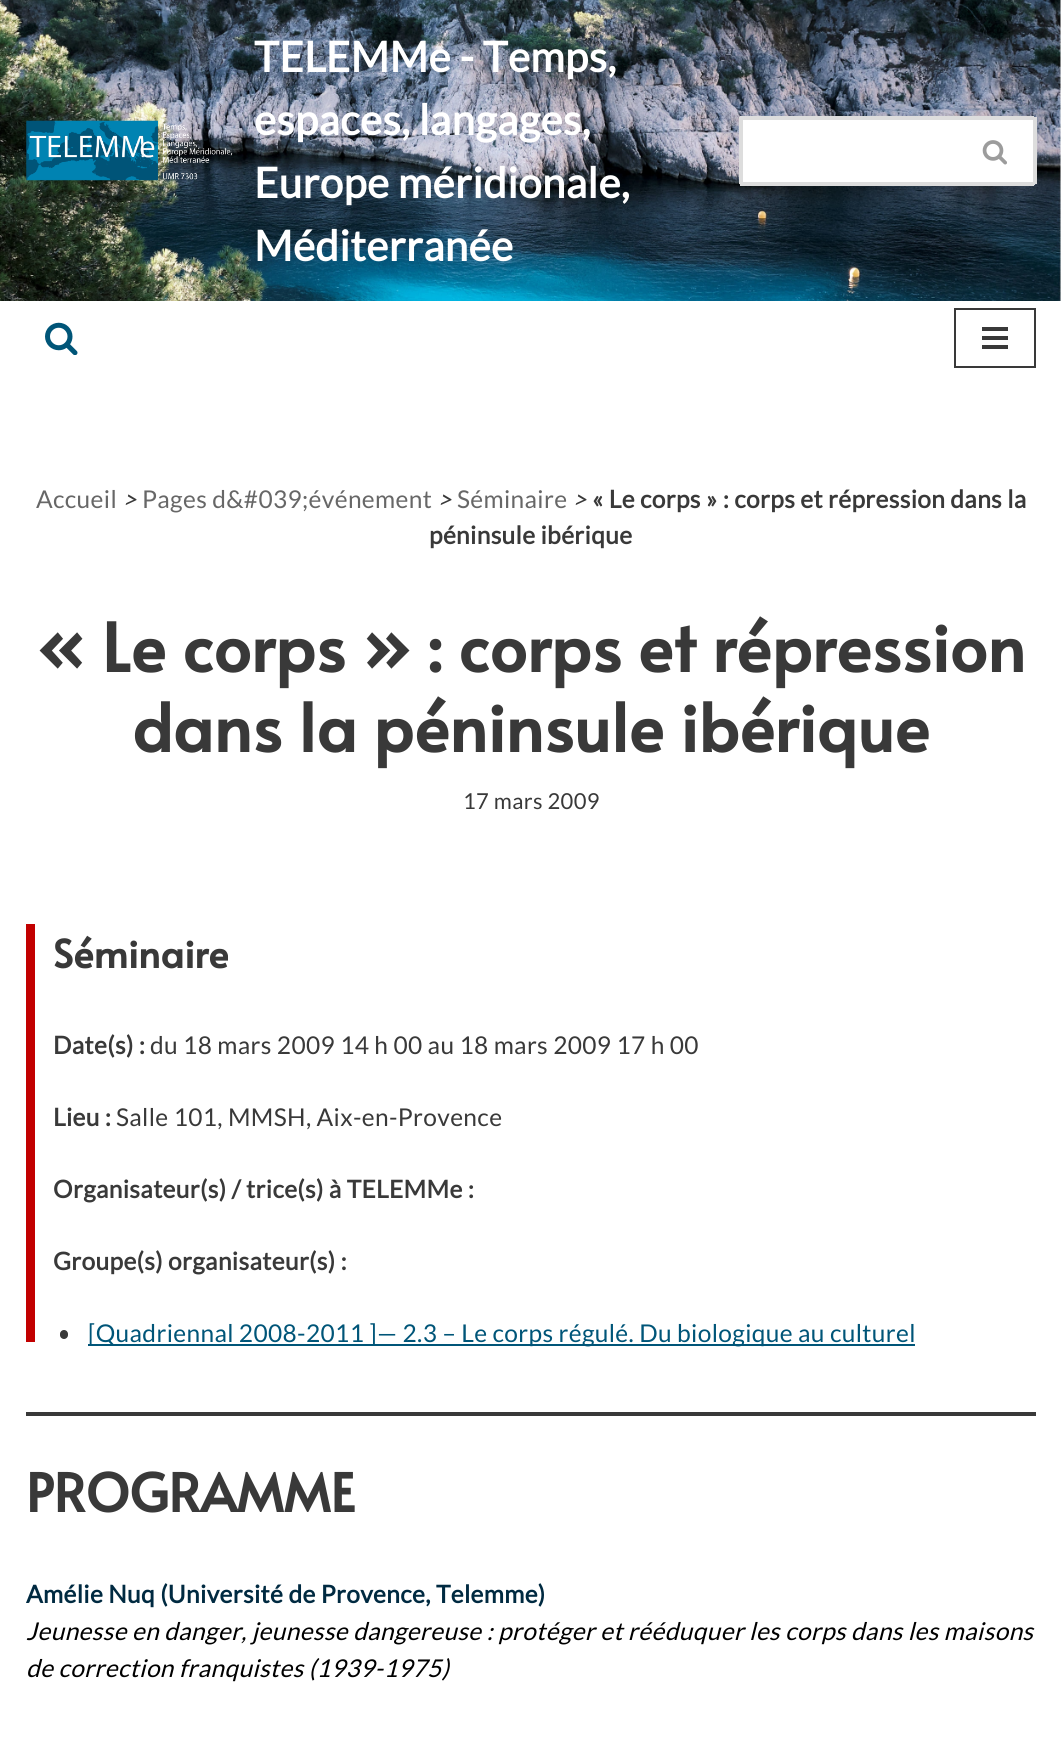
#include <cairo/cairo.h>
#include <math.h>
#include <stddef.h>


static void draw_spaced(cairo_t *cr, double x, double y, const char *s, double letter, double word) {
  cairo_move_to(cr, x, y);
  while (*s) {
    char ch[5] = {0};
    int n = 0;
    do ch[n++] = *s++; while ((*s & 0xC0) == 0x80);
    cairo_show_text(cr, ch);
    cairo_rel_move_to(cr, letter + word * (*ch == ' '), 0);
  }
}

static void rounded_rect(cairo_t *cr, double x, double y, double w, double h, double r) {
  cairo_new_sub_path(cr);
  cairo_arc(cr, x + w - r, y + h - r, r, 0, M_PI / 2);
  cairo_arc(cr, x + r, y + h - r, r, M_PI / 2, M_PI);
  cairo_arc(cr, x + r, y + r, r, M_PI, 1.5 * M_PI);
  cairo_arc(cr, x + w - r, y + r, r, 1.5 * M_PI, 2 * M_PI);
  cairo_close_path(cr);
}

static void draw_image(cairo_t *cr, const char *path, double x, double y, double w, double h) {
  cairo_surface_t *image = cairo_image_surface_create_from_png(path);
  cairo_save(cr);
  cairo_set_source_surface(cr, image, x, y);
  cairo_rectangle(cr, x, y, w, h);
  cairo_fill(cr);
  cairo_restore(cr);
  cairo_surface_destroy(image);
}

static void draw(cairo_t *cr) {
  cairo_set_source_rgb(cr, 1, 1, 1);
  cairo_paint(cr);
  draw_image(cr, "images/1.png", 0, 0, 1061, 301);
  draw_image(cr, "images/2.png", 26, 120, 207, 61);
  cairo_set_source_rgb(cr, 1, 1, 1);
  cairo_new_path(cr);
  cairo_move_to(cr, 743, 116);
  cairo_line_to(cr, 957, 116);
  cairo_line_to(cr, 957, 186);
  cairo_line_to(cr, 743, 186);
  cairo_curve_to(cr, 741, 186, 739, 184, 739, 182);
  cairo_line_to(cr, 739, 120);
  cairo_curve_to(cr, 739, 118, 741, 116, 743, 116);
  cairo_close_path(cr);
  cairo_fill(cr);
  cairo_set_source_rgb(cr, 221 / 255.0, 221 / 255.0, 221 / 255.0);
  cairo_rectangle(cr, 740, 116, 217, 4);
  cairo_fill(cr);
  cairo_rectangle(cr, 740, 182, 217, 4);
  cairo_fill(cr);
  cairo_rectangle(cr, 739, 117, 4, 67);
  cairo_fill(cr);
  cairo_set_source_rgb(cr, 1, 1, 1);
  cairo_new_path(cr);
  cairo_move_to(cr, 957, 116);
  cairo_line_to(cr, 1032, 116);
  cairo_curve_to(cr, 1034, 116, 1036, 118, 1036, 120);
  cairo_line_to(cr, 1036, 182);
  cairo_curve_to(cr, 1036, 184, 1034, 186, 1032, 186);
  cairo_line_to(cr, 957, 186);
  cairo_close_path(cr);
  cairo_fill(cr);
  cairo_set_source_rgb(cr, 221 / 255.0, 221 / 255.0, 221 / 255.0);
  cairo_rectangle(cr, 957, 116, 77, 4);
  cairo_fill(cr);
  cairo_rectangle(cr, 1033, 117, 4, 67);
  cairo_fill(cr);
  cairo_rectangle(cr, 957, 182, 77, 4);
  cairo_fill(cr);
  draw_image(cr, "images/3.png", 982, 140, 25, 25);
  draw_image(cr, "images/4.png", 45, 322, 33, 33);
  cairo_rectangle(cr, 955, 309, 80, 58);
  cairo_set_source_rgb(cr, 57 / 255.0, 57 / 255.0, 57 / 255.0);
  cairo_stroke(cr);
  cairo_rectangle(cr, 982, 327, 26, 4);
  cairo_fill(cr);
  cairo_rectangle(cr, 982, 336, 26, 4);
  cairo_fill(cr);
  cairo_rectangle(cr, 982, 345, 26, 4);
  cairo_fill(cr);
  cairo_set_source_rgb(cr, 194 / 255.0, 0, 0);
  cairo_rectangle(cr, 26, 924, 9, 418);
  cairo_fill(cr);
  cairo_set_source_rgb(cr, 57 / 255.0, 57 / 255.0, 57 / 255.0);
  rounded_rect(cr, 60, 1330, 8, 9, 4);
  cairo_fill(cr);
  cairo_set_source_rgb(cr, 0, 85 / 255.0, 120 / 255.0);
  cairo_rectangle(cr, 88, 1344, 827, 2);
  cairo_fill(cr);
  cairo_set_source_rgb(cr, 57 / 255.0, 57 / 255.0, 57 / 255.0);
  cairo_rectangle(cr, 26, 1412, 1010, 4);
  cairo_fill(cr);
  cairo_select_font_face(cr, "Lato", CAIRO_FONT_SLANT_NORMAL, CAIRO_FONT_WEIGHT_BOLD);
  cairo_set_font_size(cr, 42);
  cairo_set_source_rgb(cr, 1, 1, 1);
  draw_spaced(cr, 254, 72, "TELEMMe - Temps,", 0.35, 0);
  draw_spaced(cr, 254, 135, "espaces, langages,", 0.35, 0);
  draw_spaced(cr, 254, 198, "Europe méridionale,", 0.35, 0);
  draw_spaced(cr, 254, 261, "Méditerranée", 0.35, 0);
  cairo_select_font_face(cr, "Lato", CAIRO_FONT_SLANT_NORMAL, CAIRO_FONT_WEIGHT_NORMAL);
  cairo_set_font_size(cr, 24.5);
  cairo_set_source_rgb(cr, 103 / 255.0, 103 / 255.0, 103 / 255.0);
  draw_spaced(cr, 36, 508, "Accueil", 0.35, 0);
  cairo_select_font_face(cr, "Lato", CAIRO_FONT_SLANT_ITALIC, CAIRO_FONT_WEIGHT_NORMAL);
  cairo_set_source_rgb(cr, 57 / 255.0, 57 / 255.0, 57 / 255.0);
  draw_spaced(cr, 122, 508, ">", 0.35, 0);
  cairo_select_font_face(cr, "Lato", CAIRO_FONT_SLANT_NORMAL, CAIRO_FONT_WEIGHT_NORMAL);
  cairo_set_source_rgb(cr, 103 / 255.0, 103 / 255.0, 103 / 255.0);
  draw_spaced(cr, 142, 508, "Pages d&#039;événement", 0.35, 0);
  cairo_select_font_face(cr, "Lato", CAIRO_FONT_SLANT_ITALIC, CAIRO_FONT_WEIGHT_NORMAL);
  cairo_set_source_rgb(cr, 57 / 255.0, 57 / 255.0, 57 / 255.0);
  draw_spaced(cr, 437, 508, ">", 0.35, 0);
  cairo_select_font_face(cr, "Lato", CAIRO_FONT_SLANT_NORMAL, CAIRO_FONT_WEIGHT_NORMAL);
  cairo_set_source_rgb(cr, 103 / 255.0, 103 / 255.0, 103 / 255.0);
  draw_spaced(cr, 457, 508, "Séminaire", 0.35, 0);
  cairo_select_font_face(cr, "Lato", CAIRO_FONT_SLANT_ITALIC, CAIRO_FONT_WEIGHT_NORMAL);
  cairo_set_source_rgb(cr, 57 / 255.0, 57 / 255.0, 57 / 255.0);
  draw_spaced(cr, 572, 508, ">", 0.35, 0);
  cairo_select_font_face(cr, "Lato", CAIRO_FONT_SLANT_NORMAL, CAIRO_FONT_WEIGHT_BOLD);
  draw_spaced(cr, 592, 508, "« Le corps » : corps et répression dans la", 0.35, 0);
  draw_spaced(cr, 429, 544, "péninsule ibérique", 0.35, 0);
  cairo_select_font_face(cr, "Alata", CAIRO_FONT_SLANT_NORMAL, CAIRO_FONT_WEIGHT_BOLD);
  cairo_set_font_size(cr, 66.5);
  cairo_move_to(cr, 36, 672);
  cairo_show_text(cr, "« Le corps » : corps et répression");
  cairo_move_to(cr, 132, 752);
  cairo_show_text(cr, "dans la péninsule ibérique");
  cairo_select_font_face(cr, "Lato", CAIRO_FONT_SLANT_NORMAL, CAIRO_FONT_WEIGHT_NORMAL);
  cairo_set_font_size(cr, 22);
  draw_spaced(cr, 463, 809, "17 mars 2009", 0.35, 0);
  cairo_select_font_face(cr, "Alata", CAIRO_FONT_SLANT_NORMAL, CAIRO_FONT_WEIGHT_BOLD);
  cairo_set_font_size(cr, 38.5);
  cairo_move_to(cr, 53, 968);
  cairo_show_text(cr, "Séminaire");
  cairo_select_font_face(cr, "Lato", CAIRO_FONT_SLANT_NORMAL, CAIRO_FONT_WEIGHT_BOLD);
  cairo_set_font_size(cr, 24.5);
  draw_spaced(cr, 53, 1054, "Date(s) :", 0.35, 0);
  cairo_select_font_face(cr, "Lato", CAIRO_FONT_SLANT_NORMAL, CAIRO_FONT_WEIGHT_NORMAL);
  draw_spaced(cr, 150, 1054, "du 18 mars 2009 14 h 00 au 18 mars 2009 17 h 00", 0.35, 0);
  cairo_select_font_face(cr, "Lato", CAIRO_FONT_SLANT_NORMAL, CAIRO_FONT_WEIGHT_BOLD);
  draw_spaced(cr, 53, 1126, "Lieu :", 0.35, 0);
  cairo_select_font_face(cr, "Lato", CAIRO_FONT_SLANT_NORMAL, CAIRO_FONT_WEIGHT_NORMAL);
  draw_spaced(cr, 116, 1126, "Salle 101, MMSH, Aix-en-Provence", 0.35, 0);
  cairo_select_font_face(cr, "Lato", CAIRO_FONT_SLANT_NORMAL, CAIRO_FONT_WEIGHT_BOLD);
  draw_spaced(cr, 53, 1198, "Organisateur(s) / trice(s) à TELEMMe :", 0.35, 0);
  draw_spaced(cr, 53, 1270, "Groupe(s) organisateur(s) :", 0.35, 0);
  cairo_select_font_face(cr, "Lato", CAIRO_FONT_SLANT_NORMAL, CAIRO_FONT_WEIGHT_NORMAL);
  cairo_set_source_rgb(cr, 0, 85 / 255.0, 120 / 255.0);
  draw_spaced(cr, 88, 1342, "[Quadriennal 2008-2011 ]— 2.3 – Le corps régulé. Du biologique au culturel", 0.35, 0);
  cairo_select_font_face(cr, "Alata", CAIRO_FONT_SLANT_NORMAL, CAIRO_FONT_WEIGHT_BOLD);
  cairo_set_font_size(cr, 52.5);
  cairo_set_source_rgb(cr, 57 / 255.0, 57 / 255.0, 57 / 255.0);
  cairo_move_to(cr, 26, 1512);
  cairo_show_text(cr, "PROGRAMME");
  cairo_select_font_face(cr, "Lato", CAIRO_FONT_SLANT_NORMAL, CAIRO_FONT_WEIGHT_BOLD);
  cairo_set_font_size(cr, 24.5);
  cairo_set_source_rgb(cr, 0, 42 / 255.0, 65 / 255.0);
  draw_spaced(cr, 26, 1603, "Amélie Nuq (Université de Provence, Telemme)", 0.35, 0);
  cairo_select_font_face(cr, "Lato", CAIRO_FONT_SLANT_ITALIC, CAIRO_FONT_WEIGHT_NORMAL);
  cairo_set_source_rgb(cr, 0, 0, 0);
  draw_spaced(cr, 26, 1640, "Jeunesse en danger, jeunesse dangereuse : protéger et rééduquer les corps dans les maisons", 0.35, 0);
  draw_spaced(cr, 26, 1677, "de correction franquistes (1939-1975)", 0.35, 0);
}

int main(void) {
  cairo_surface_t *surface = cairo_image_surface_create(CAIRO_FORMAT_RGB24, 1061, 1751);
  cairo_t *cr = cairo_create(surface);
  cairo_font_options_t *options = cairo_font_options_create();
  cairo_font_options_set_hint_metrics(options, CAIRO_HINT_METRICS_OFF);
  cairo_font_options_set_hint_style(options, CAIRO_HINT_STYLE_NONE);
  cairo_set_font_options(cr, options);
  cairo_set_miter_limit(cr, 4);
  draw(cr);
  cairo_surface_write_to_png(surface, "out.png");
  cairo_font_options_destroy(options);
  cairo_destroy(cr);
  cairo_surface_destroy(surface);
  return 0;
}
